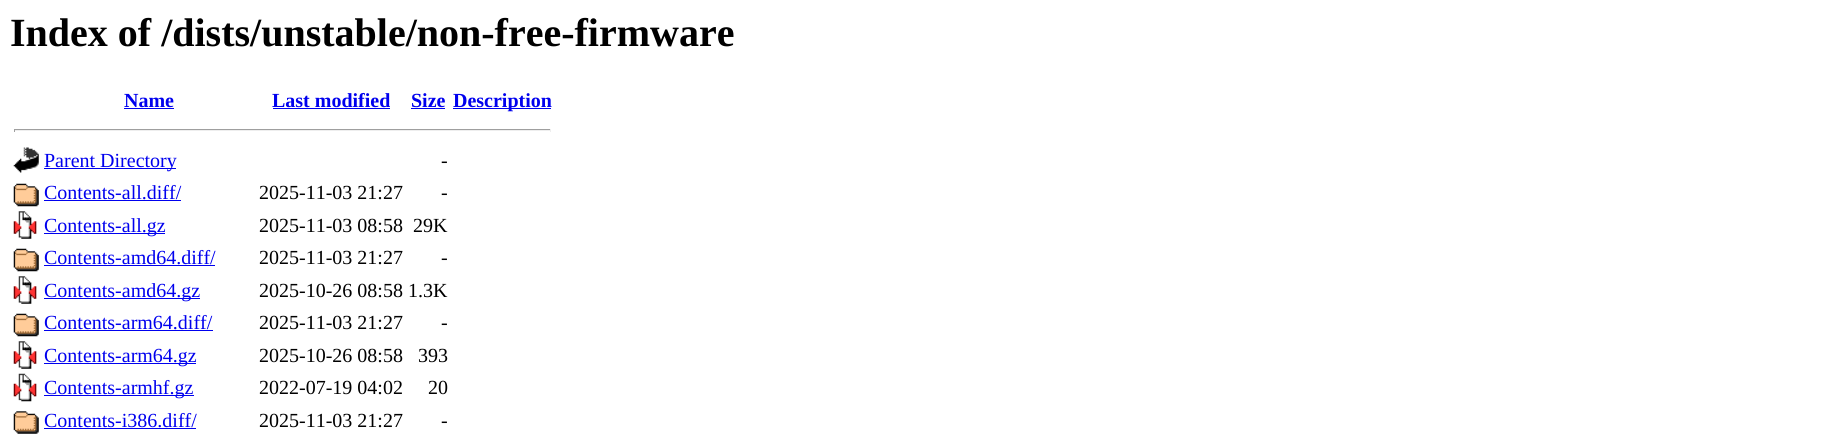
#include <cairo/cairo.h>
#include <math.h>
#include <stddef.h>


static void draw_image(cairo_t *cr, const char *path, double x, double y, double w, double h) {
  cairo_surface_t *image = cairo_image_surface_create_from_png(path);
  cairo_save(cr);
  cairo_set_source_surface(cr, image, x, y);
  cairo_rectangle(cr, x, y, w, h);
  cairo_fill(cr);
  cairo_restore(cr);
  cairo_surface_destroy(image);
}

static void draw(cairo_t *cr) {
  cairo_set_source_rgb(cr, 1, 1, 1);
  cairo_paint(cr);
  cairo_set_source_rgb(cr, 0, 0, 238 / 255.0);
  cairo_rectangle(cr, 124, 108, 50, 1);
  cairo_fill(cr);
  cairo_rectangle(cr, 273, 108, 117, 1);
  cairo_fill(cr);
  cairo_rectangle(cr, 411, 108, 34, 1);
  cairo_fill(cr);
  cairo_rectangle(cr, 453, 108, 98, 1);
  cairo_fill(cr);
  cairo_set_source_rgb(cr, 159 / 255.0, 159 / 255.0, 159 / 255.0);
  cairo_rectangle(cr, 14, 129, 537, 1);
  cairo_fill(cr);
  cairo_set_source_rgb(cr, 238 / 255.0, 238 / 255.0, 238 / 255.0);
  cairo_rectangle(cr, 550, 129, 1, 3);
  cairo_fill(cr);
  cairo_rectangle(cr, 14, 130, 537, 1);
  cairo_fill(cr);
  cairo_set_source_rgb(cr, 159 / 255.0, 159 / 255.0, 159 / 255.0);
  cairo_rectangle(cr, 14, 129, 1, 3);
  cairo_fill(cr);
  draw_image(cr, "images/1.png", 13, 147, 26, 26);
  cairo_set_source_rgb(cr, 0, 0, 238 / 255.0);
  cairo_rectangle(cr, 44, 168, 132, 1);
  cairo_fill(cr);
  draw_image(cr, "images/2.png", 13, 183, 26, 24);
  cairo_rectangle(cr, 44, 200, 137, 1);
  cairo_fill(cr);
  draw_image(cr, "images/3.png", 13, 211, 24, 28);
  cairo_rectangle(cr, 44, 233, 121, 1);
  cairo_fill(cr);
  draw_image(cr, "images/2.png", 13, 248, 26, 24);
  cairo_rectangle(cr, 44, 265, 171, 1);
  cairo_fill(cr);
  draw_image(cr, "images/4.png", 13, 276, 24, 28);
  cairo_rectangle(cr, 44, 298, 156, 1);
  cairo_fill(cr);
  draw_image(cr, "images/2.png", 13, 313, 26, 24);
  cairo_rectangle(cr, 44, 330, 169, 1);
  cairo_fill(cr);
  draw_image(cr, "images/3.png", 13, 341, 24, 28);
  cairo_rectangle(cr, 44, 363, 152, 1);
  cairo_fill(cr);
  draw_image(cr, "images/5.png", 13, 373, 24, 29);
  cairo_rectangle(cr, 44, 395, 150, 1);
  cairo_fill(cr);
  draw_image(cr, "images/6.png", 13, 411, 26, 23);
  cairo_rectangle(cr, 44, 428, 152, 1);
  cairo_fill(cr);
  cairo_select_font_face(cr, "Liberation Serif", CAIRO_FONT_SLANT_NORMAL, CAIRO_FONT_WEIGHT_BOLD);
  cairo_set_font_size(cr, 40);
  cairo_set_source_rgb(cr, 0, 0, 0);
  cairo_move_to(cr, 10, 46);
  cairo_show_text(cr, "Index of /dists/unstable/non-free-firmware");
  cairo_set_font_size(cr, 20);
  cairo_set_source_rgb(cr, 0, 0, 238 / 255.0);
  cairo_move_to(cr, 124, 107);
  cairo_show_text(cr, "Name");
  cairo_move_to(cr, 272, 107);
  cairo_show_text(cr, "Last modified");
  cairo_move_to(cr, 411, 107);
  cairo_show_text(cr, "Size");
  cairo_move_to(cr, 453, 107);
  cairo_show_text(cr, "Description");
  cairo_select_font_face(cr, "Liberation Serif", CAIRO_FONT_SLANT_NORMAL, CAIRO_FONT_WEIGHT_NORMAL);
  cairo_move_to(cr, 44, 167);
  cairo_show_text(cr, "Parent Directory");
  cairo_set_source_rgb(cr, 0, 0, 0);
  cairo_move_to(cr, 441, 167);
  cairo_show_text(cr, "-");
  cairo_set_source_rgb(cr, 0, 0, 238 / 255.0);
  cairo_move_to(cr, 44, 199);
  cairo_show_text(cr, "Contents-all.diff/");
  cairo_set_source_rgb(cr, 0, 0, 0);
  cairo_move_to(cr, 259, 199);
  cairo_show_text(cr, "2025-11-03 21:27");
  cairo_move_to(cr, 441, 199);
  cairo_show_text(cr, "-");
  cairo_set_source_rgb(cr, 0, 0, 238 / 255.0);
  cairo_move_to(cr, 44, 232);
  cairo_show_text(cr, "Contents-all.gz");
  cairo_set_source_rgb(cr, 0, 0, 0);
  cairo_move_to(cr, 259, 232);
  cairo_show_text(cr, "2025-11-03 08:58");
  cairo_move_to(cr, 413, 232);
  cairo_show_text(cr, "29K");
  cairo_set_source_rgb(cr, 0, 0, 238 / 255.0);
  cairo_move_to(cr, 44, 264);
  cairo_show_text(cr, "Contents-amd64.diff/");
  cairo_set_source_rgb(cr, 0, 0, 0);
  cairo_move_to(cr, 259, 264);
  cairo_show_text(cr, "2025-11-03 21:27");
  cairo_move_to(cr, 441, 264);
  cairo_show_text(cr, "-");
  cairo_set_source_rgb(cr, 0, 0, 238 / 255.0);
  cairo_move_to(cr, 44, 297);
  cairo_show_text(cr, "Contents-amd64.gz");
  cairo_set_source_rgb(cr, 0, 0, 0);
  cairo_move_to(cr, 259, 297);
  cairo_show_text(cr, "2025-10-26 08:58 1.3K");
  cairo_set_source_rgb(cr, 0, 0, 238 / 255.0);
  cairo_move_to(cr, 44, 329);
  cairo_show_text(cr, "Contents-arm64.diff/");
  cairo_set_source_rgb(cr, 0, 0, 0);
  cairo_move_to(cr, 259, 329);
  cairo_show_text(cr, "2025-11-03 21:27");
  cairo_move_to(cr, 441, 329);
  cairo_show_text(cr, "-");
  cairo_set_source_rgb(cr, 0, 0, 238 / 255.0);
  cairo_move_to(cr, 44, 362);
  cairo_show_text(cr, "Contents-arm64.gz");
  cairo_set_source_rgb(cr, 0, 0, 0);
  cairo_move_to(cr, 259, 362);
  cairo_show_text(cr, "2025-10-26 08:58");
  cairo_move_to(cr, 418, 362);
  cairo_show_text(cr, "393");
  cairo_set_source_rgb(cr, 0, 0, 238 / 255.0);
  cairo_move_to(cr, 44, 394);
  cairo_show_text(cr, "Contents-armhf.gz");
  cairo_set_source_rgb(cr, 0, 0, 0);
  cairo_move_to(cr, 259, 394);
  cairo_show_text(cr, "2022-07-19 04:02");
  cairo_move_to(cr, 428, 394);
  cairo_show_text(cr, "20");
  cairo_set_source_rgb(cr, 0, 0, 238 / 255.0);
  cairo_move_to(cr, 44, 427);
  cairo_show_text(cr, "Contents-i386.diff/");
  cairo_set_source_rgb(cr, 0, 0, 0);
  cairo_move_to(cr, 259, 427);
  cairo_show_text(cr, "2025-11-03 21:27");
  cairo_move_to(cr, 441, 427);
  cairo_show_text(cr, "-");
}

int main(void) {
  cairo_surface_t *surface = cairo_image_surface_create(CAIRO_FORMAT_RGB24, 1826, 436);
  cairo_t *cr = cairo_create(surface);
  cairo_font_options_t *options = cairo_font_options_create();
  cairo_font_options_set_hint_metrics(options, CAIRO_HINT_METRICS_OFF);
  cairo_font_options_set_hint_style(options, CAIRO_HINT_STYLE_NONE);
  cairo_set_font_options(cr, options);
  cairo_set_miter_limit(cr, 4);
  draw(cr);
  cairo_surface_write_to_png(surface, "out.png");
  cairo_font_options_destroy(options);
  cairo_destroy(cr);
  cairo_surface_destroy(surface);
  return 0;
}
